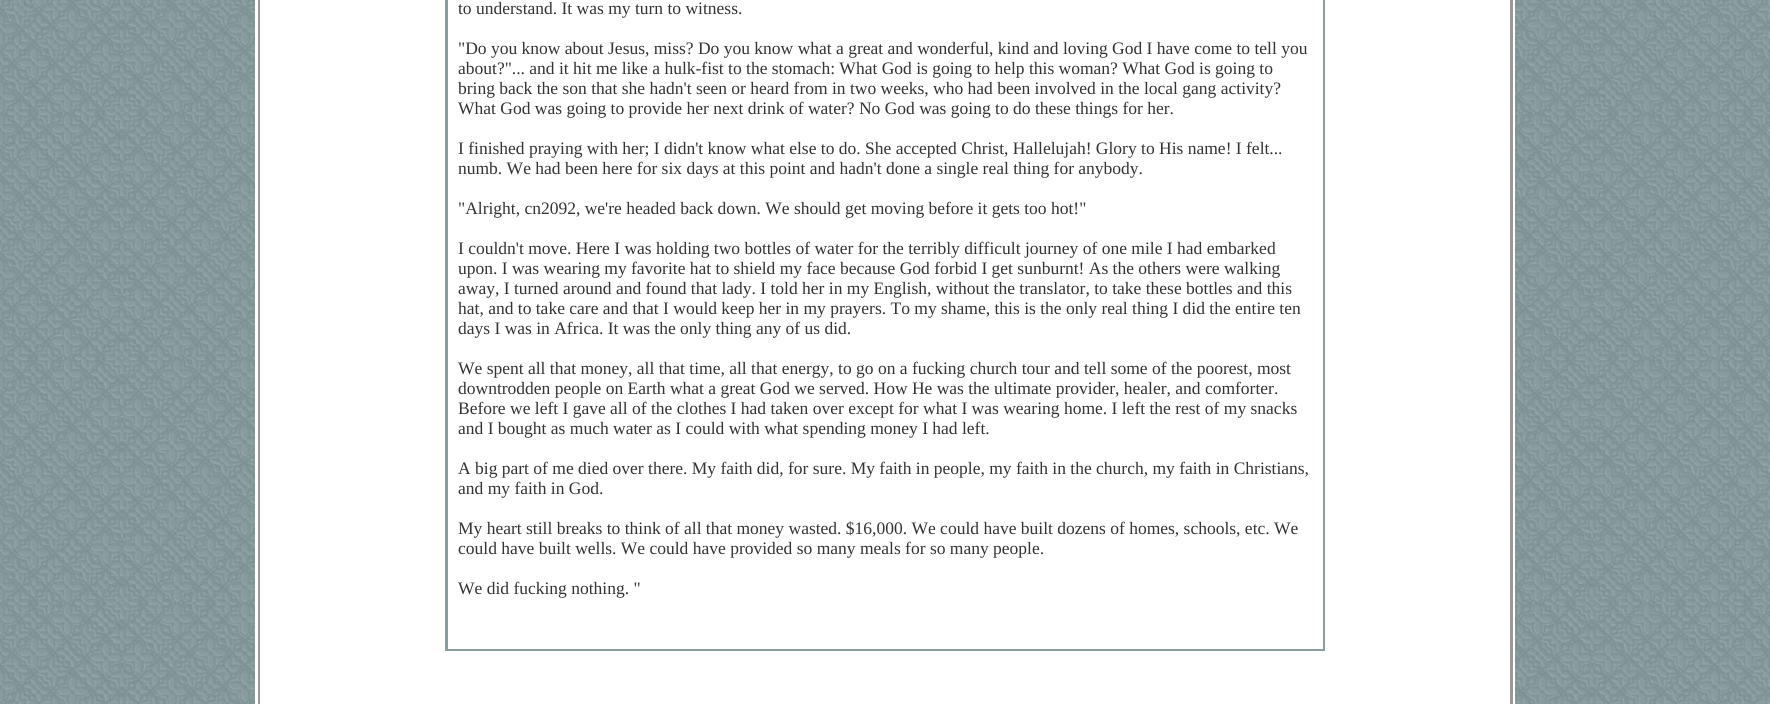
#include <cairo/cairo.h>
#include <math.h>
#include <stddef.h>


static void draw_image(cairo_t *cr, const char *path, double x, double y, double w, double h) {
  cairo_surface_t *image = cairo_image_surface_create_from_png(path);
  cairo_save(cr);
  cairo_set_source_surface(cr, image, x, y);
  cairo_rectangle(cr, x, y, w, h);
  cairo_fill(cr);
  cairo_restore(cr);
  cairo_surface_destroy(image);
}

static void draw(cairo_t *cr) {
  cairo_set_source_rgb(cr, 1, 1, 1);
  cairo_paint(cr);
  draw_image(cr, "images/1.png", 0, 0, 1770, 704);
  cairo_set_source_rgb(cr, 1, 1, 1);
  cairo_rectangle(cr, 255, 0, 1260, 704);
  cairo_fill(cr);
  cairo_set_source_rgb(cr, 153 / 255.0, 153 / 255.0, 153 / 255.0);
  cairo_rectangle(cr, 258, 0, 1255, 704);
  cairo_fill(cr);
  cairo_set_source_rgb(cr, 1, 1, 1);
  cairo_rectangle(cr, 260, 0, 1250, 704);
  cairo_fill(cr);
  cairo_set_source_rgb(cr, 138 / 255.0, 157 / 255.0, 159 / 255.0);
  cairo_rectangle(cr, 445, 0, 880, 651);
  cairo_fill(cr);
  cairo_set_source_rgb(cr, 1, 1, 1);
  cairo_rectangle(cr, 448, 0, 875, 649);
  cairo_fill(cr);
  cairo_select_font_face(cr, "Liberation Serif", CAIRO_FONT_SLANT_NORMAL, CAIRO_FONT_WEIGHT_NORMAL);
  cairo_set_font_size(cr, 17.5);
  cairo_set_source_rgb(cr, 51 / 255.0, 51 / 255.0, 51 / 255.0);
  cairo_move_to(cr, 458, 14);
  cairo_show_text(cr, "to understand. It was my turn to witness.");
  cairo_move_to(cr, 458, 54);
  cairo_show_text(cr, "\"Do you know about Jesus, miss? Do you know what a great and wonderful, kind and loving God I have come to tell you");
  cairo_move_to(cr, 458, 74);
  cairo_show_text(cr, "about?\"... and it hit me like a hulk-fist to the stomach: What God is going to help this woman? What God is going to");
  cairo_move_to(cr, 458, 94);
  cairo_show_text(cr, "bring back the son that she hadn't seen or heard from in two weeks, who had been involved in the local gang activity?");
  cairo_move_to(cr, 458, 114);
  cairo_show_text(cr, "What God was going to provide her next drink of water? No God was going to do these things for her.");
  cairo_move_to(cr, 458, 154);
  cairo_show_text(cr, "I finished praying with her; I didn't know what else to do. She accepted Christ, Hallelujah! Glory to His name! I felt...");
  cairo_move_to(cr, 458, 174);
  cairo_show_text(cr, "numb. We had been here for six days at this point and hadn't done a single real thing for anybody.");
  cairo_move_to(cr, 458, 214);
  cairo_show_text(cr, "\"Alright, cn2092, we're headed back down. We should get moving before it gets too hot!\"");
  cairo_move_to(cr, 458, 254);
  cairo_show_text(cr, "I couldn't move. Here I was holding two bottles of water for the terribly difficult journey of one mile I had embarked");
  cairo_move_to(cr, 458, 274);
  cairo_show_text(cr, "upon. I was wearing my favorite hat to shield my face because God forbid I get sunburnt! As the others were walking");
  cairo_move_to(cr, 458, 294);
  cairo_show_text(cr, "away, I turned around and found that lady. I told her in my English, without the translator, to take these bottles and this");
  cairo_move_to(cr, 458, 314);
  cairo_show_text(cr, "hat, and to take care and that I would keep her in my prayers. To my shame, this is the only real thing I did the entire ten");
  cairo_move_to(cr, 458, 334);
  cairo_show_text(cr, "days I was in Africa. It was the only thing any of us did.");
  cairo_move_to(cr, 458, 374);
  cairo_show_text(cr, "We spent all that money, all that time, all that energy, to go on a fucking church tour and tell some of the poorest, most");
  cairo_move_to(cr, 458, 394);
  cairo_show_text(cr, "downtrodden people on Earth what a great God we served. How He was the ultimate provider, healer, and comforter.");
  cairo_move_to(cr, 458, 414);
  cairo_show_text(cr, "Before we left I gave all of the clothes I had taken over except for what I was wearing home. I left the rest of my snacks");
  cairo_move_to(cr, 458, 434);
  cairo_show_text(cr, "and I bought as much water as I could with what spending money I had left.");
  cairo_move_to(cr, 458, 474);
  cairo_show_text(cr, "A big part of me died over there. My faith did, for sure. My faith in people, my faith in the church, my faith in Christians,");
  cairo_move_to(cr, 458, 494);
  cairo_show_text(cr, "and my faith in God.");
  cairo_move_to(cr, 458, 534);
  cairo_show_text(cr, "My heart still breaks to think of all that money wasted. $16,000. We could have built dozens of homes, schools, etc. We");
  cairo_move_to(cr, 458, 554);
  cairo_show_text(cr, "could have built wells. We could have provided so many meals for so many people.");
  cairo_move_to(cr, 458, 594);
  cairo_show_text(cr, "We did fucking nothing. \"");
}

int main(void) {
  cairo_surface_t *surface = cairo_image_surface_create(CAIRO_FORMAT_RGB24, 1770, 704);
  cairo_t *cr = cairo_create(surface);
  cairo_font_options_t *options = cairo_font_options_create();
  cairo_font_options_set_hint_metrics(options, CAIRO_HINT_METRICS_OFF);
  cairo_font_options_set_hint_style(options, CAIRO_HINT_STYLE_NONE);
  cairo_set_font_options(cr, options);
  cairo_set_miter_limit(cr, 4);
  draw(cr);
  cairo_surface_write_to_png(surface, "out.png");
  cairo_font_options_destroy(options);
  cairo_destroy(cr);
  cairo_surface_destroy(surface);
  return 0;
}
